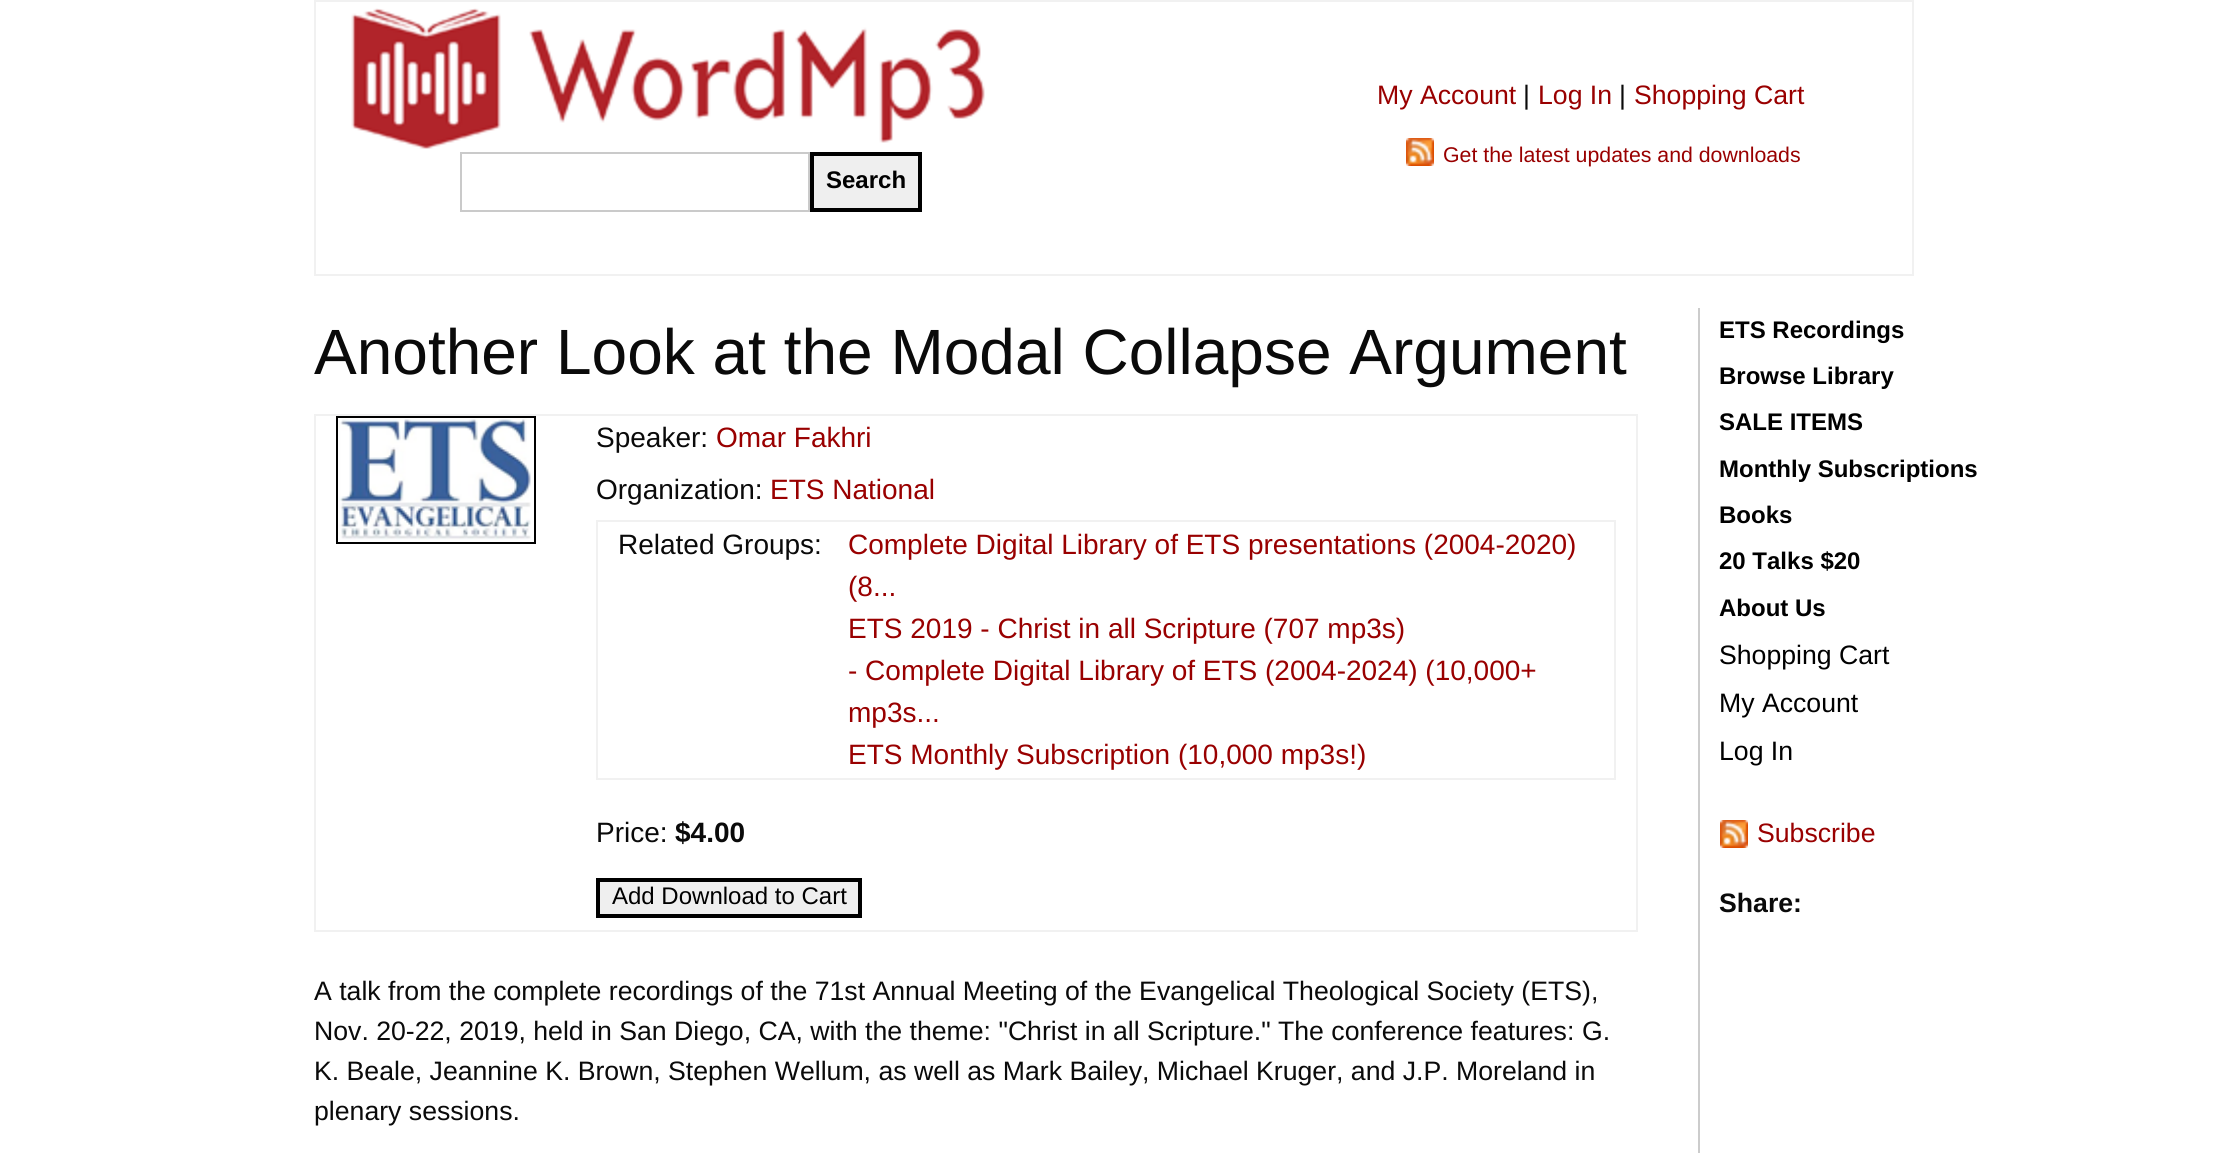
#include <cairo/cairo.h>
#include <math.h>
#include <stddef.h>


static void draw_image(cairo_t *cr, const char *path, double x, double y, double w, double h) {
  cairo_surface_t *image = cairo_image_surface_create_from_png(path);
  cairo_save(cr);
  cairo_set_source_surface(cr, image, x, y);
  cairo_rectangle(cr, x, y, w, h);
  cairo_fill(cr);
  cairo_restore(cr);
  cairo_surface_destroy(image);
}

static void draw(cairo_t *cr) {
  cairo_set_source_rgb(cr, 1, 1, 1);
  cairo_paint(cr);
  cairo_set_source_rgb(cr, 241 / 255.0, 241 / 255.0, 241 / 255.0);
  cairo_rectangle(cr, 314, 0, 1600, 2);
  cairo_fill(cr);
  cairo_rectangle(cr, 1912, 0, 2, 276);
  cairo_fill(cr);
  cairo_rectangle(cr, 314, 274, 1600, 2);
  cairo_fill(cr);
  cairo_rectangle(cr, 314, 0, 2, 276);
  cairo_fill(cr);
  draw_image(cr, "images/1.png", 1406, 138, 28, 28);
  draw_image(cr, "images/2.png", 351, 8, 634, 141);
  cairo_rectangle(cr, 461, 153, 348, 58);
  cairo_set_source_rgb(cr, 202 / 255.0, 202 / 255.0, 202 / 255.0);
  cairo_stroke(cr);
  cairo_set_source_rgb(cr, 239 / 255.0, 239 / 255.0, 239 / 255.0);
  cairo_rectangle(cr, 812, 154, 108, 56);
  cairo_fill_preserve(cr);
  cairo_set_source_rgb(cr, 0, 0, 0);
  cairo_set_line_width(cr, 4);
  cairo_stroke(cr);
  cairo_set_source_rgb(cr, 241 / 255.0, 241 / 255.0, 241 / 255.0);
  cairo_rectangle(cr, 314, 414, 1324, 2);
  cairo_fill(cr);
  cairo_rectangle(cr, 1636, 414, 2, 518);
  cairo_fill(cr);
  cairo_rectangle(cr, 314, 930, 1324, 2);
  cairo_fill(cr);
  cairo_rectangle(cr, 314, 414, 2, 518);
  cairo_fill(cr);
  cairo_rectangle(cr, 337, 417, 198, 126);
  cairo_set_source_rgb(cr, 0, 0, 0);
  cairo_set_line_width(cr, 2);
  cairo_stroke(cr);
  draw_image(cr, "images/3.png", 338, 418, 193, 122);
  cairo_set_source_rgb(cr, 241 / 255.0, 241 / 255.0, 241 / 255.0);
  cairo_rectangle(cr, 596, 520, 1020, 2);
  cairo_fill(cr);
  cairo_rectangle(cr, 1614, 520, 2, 260);
  cairo_fill(cr);
  cairo_rectangle(cr, 596, 778, 1020, 2);
  cairo_fill(cr);
  cairo_rectangle(cr, 596, 520, 2, 260);
  cairo_fill(cr);
  cairo_set_source_rgb(cr, 239 / 255.0, 239 / 255.0, 239 / 255.0);
  cairo_rectangle(cr, 598, 880, 262, 36);
  cairo_fill_preserve(cr);
  cairo_set_source_rgb(cr, 0, 0, 0);
  cairo_set_line_width(cr, 4);
  cairo_stroke(cr);
  cairo_set_source_rgb(cr, 204 / 255.0, 204 / 255.0, 204 / 255.0);
  cairo_rectangle(cr, 1698, 308, 2, 845);
  cairo_fill(cr);
  draw_image(cr, "images/1.png", 1720, 820, 28, 28);
  cairo_select_font_face(cr, "Liberation Sans", CAIRO_FONT_SLANT_NORMAL, CAIRO_FONT_WEIGHT_NORMAL);
  cairo_set_font_size(cr, 26.65);
  cairo_set_source_rgb(cr, 153 / 255.0, 0, 0);
  cairo_move_to(cr, 1377, 104);
  cairo_show_text(cr, "My Account");
  cairo_set_source_rgb(cr, 10 / 255.0, 10 / 255.0, 10 / 255.0);
  cairo_move_to(cr, 1523, 104);
  cairo_show_text(cr, "|");
  cairo_set_source_rgb(cr, 153 / 255.0, 0, 0);
  cairo_move_to(cr, 1538, 104);
  cairo_show_text(cr, "Log In");
  cairo_set_source_rgb(cr, 10 / 255.0, 10 / 255.0, 10 / 255.0);
  cairo_move_to(cr, 1619, 104);
  cairo_show_text(cr, "|");
  cairo_set_source_rgb(cr, 153 / 255.0, 0, 0);
  cairo_move_to(cr, 1634, 104);
  cairo_show_text(cr, "Shopping Cart");
  cairo_set_font_size(cr, 21.3);
  cairo_move_to(cr, 1443, 162);
  cairo_show_text(cr, "Get the latest updates and downloads");
  cairo_select_font_face(cr, "Liberation Sans", CAIRO_FONT_SLANT_NORMAL, CAIRO_FONT_WEIGHT_BOLD);
  cairo_set_font_size(cr, 24);
  cairo_set_source_rgb(cr, 0, 0, 0);
  cairo_move_to(cr, 826, 188);
  cairo_show_text(cr, "Search");
  cairo_select_font_face(cr, "Liberation Sans", CAIRO_FONT_SLANT_NORMAL, CAIRO_FONT_WEIGHT_NORMAL);
  cairo_set_font_size(cr, 64);
  cairo_set_source_rgb(cr, 10 / 255.0, 10 / 255.0, 10 / 255.0);
  cairo_move_to(cr, 314, 374);
  cairo_show_text(cr, "Another Look at the Modal Collapse Argument");
  cairo_set_font_size(cr, 28);
  cairo_move_to(cr, 596, 447);
  cairo_show_text(cr, "Speaker:");
  cairo_set_source_rgb(cr, 153 / 255.0, 0, 0);
  cairo_move_to(cr, 716, 447);
  cairo_show_text(cr, "Omar Fakhri");
  cairo_set_source_rgb(cr, 10 / 255.0, 10 / 255.0, 10 / 255.0);
  cairo_move_to(cr, 596, 499);
  cairo_show_text(cr, "Organization:");
  cairo_set_source_rgb(cr, 153 / 255.0, 0, 0);
  cairo_move_to(cr, 770, 499);
  cairo_show_text(cr, "ETS National");
  cairo_set_source_rgb(cr, 10 / 255.0, 10 / 255.0, 10 / 255.0);
  cairo_move_to(cr, 618, 554);
  cairo_show_text(cr, "Related Groups:");
  cairo_set_source_rgb(cr, 153 / 255.0, 0, 0);
  cairo_move_to(cr, 848, 554);
  cairo_show_text(cr, "Complete Digital Library of ETS presentations (2004-2020)");
  cairo_move_to(cr, 848, 596);
  cairo_show_text(cr, "(8...");
  cairo_move_to(cr, 848, 638);
  cairo_show_text(cr, "ETS 2019 - Christ in all Scripture (707 mp3s)");
  cairo_move_to(cr, 848, 680);
  cairo_show_text(cr, "- Complete Digital Library of ETS (2004-2024) (10,000+");
  cairo_move_to(cr, 848, 722);
  cairo_show_text(cr, "mp3s...");
  cairo_move_to(cr, 848, 764);
  cairo_show_text(cr, "ETS Monthly Subscription (10,000 mp3s!)");
  cairo_set_source_rgb(cr, 10 / 255.0, 10 / 255.0, 10 / 255.0);
  cairo_move_to(cr, 596, 842);
  cairo_show_text(cr, "Price:");
  cairo_select_font_face(cr, "Liberation Sans", CAIRO_FONT_SLANT_NORMAL, CAIRO_FONT_WEIGHT_BOLD);
  cairo_move_to(cr, 675, 842);
  cairo_show_text(cr, "$4.00");
  cairo_select_font_face(cr, "Liberation Sans", CAIRO_FONT_SLANT_NORMAL, CAIRO_FONT_WEIGHT_NORMAL);
  cairo_set_font_size(cr, 24);
  cairo_set_source_rgb(cr, 0, 0, 0);
  cairo_move_to(cr, 612, 904);
  cairo_show_text(cr, "Add Download to Cart");
  cairo_set_font_size(cr, 26.65);
  cairo_set_source_rgb(cr, 10 / 255.0, 10 / 255.0, 10 / 255.0);
  cairo_move_to(cr, 314, 1000);
  cairo_show_text(cr, "A talk from the complete recordings of the 71st Annual Meeting of the Evangelical Theological Society (ETS),");
  cairo_move_to(cr, 314, 1040);
  cairo_show_text(cr, "Nov. 20-22, 2019, held in San Diego, CA, with the theme: \"Christ in all Scripture.\" The conference features:");
  cairo_move_to(cr, 1582, 1040);
  cairo_show_text(cr, "G.");
  cairo_move_to(cr, 314, 1080);
  cairo_show_text(cr, "K. Beale, Jeannine K. Brown, Stephen Wellum, as well as Mark Bailey, Michael Kruger, and J.P. Moreland in");
  cairo_move_to(cr, 314, 1120);
  cairo_show_text(cr, "plenary sessions.");
  cairo_select_font_face(cr, "Liberation Sans", CAIRO_FONT_SLANT_NORMAL, CAIRO_FONT_WEIGHT_BOLD);
  cairo_set_font_size(cr, 24);
  cairo_set_source_rgb(cr, 0, 0, 0);
  cairo_move_to(cr, 1719, 338);
  cairo_show_text(cr, "ETS Recordings");
  cairo_move_to(cr, 1719, 384);
  cairo_show_text(cr, "Browse Library");
  cairo_move_to(cr, 1719, 430);
  cairo_show_text(cr, "SALE ITEMS");
  cairo_move_to(cr, 1719, 477);
  cairo_show_text(cr, "Monthly Subscriptions");
  cairo_move_to(cr, 1719, 523);
  cairo_show_text(cr, "Books");
  cairo_move_to(cr, 1719, 569);
  cairo_show_text(cr, "20 Talks $20");
  cairo_move_to(cr, 1719, 616);
  cairo_show_text(cr, "About Us");
  cairo_select_font_face(cr, "Liberation Sans", CAIRO_FONT_SLANT_NORMAL, CAIRO_FONT_WEIGHT_NORMAL);
  cairo_set_font_size(cr, 26.65);
  cairo_move_to(cr, 1719, 664);
  cairo_show_text(cr, "Shopping Cart");
  cairo_move_to(cr, 1719, 712);
  cairo_show_text(cr, "My Account");
  cairo_move_to(cr, 1719, 760);
  cairo_show_text(cr, "Log In");
  cairo_set_source_rgb(cr, 153 / 255.0, 0, 0);
  cairo_move_to(cr, 1757, 842);
  cairo_show_text(cr, "Subscribe");
  cairo_select_font_face(cr, "Liberation Sans", CAIRO_FONT_SLANT_NORMAL, CAIRO_FONT_WEIGHT_BOLD);
  cairo_set_source_rgb(cr, 10 / 255.0, 10 / 255.0, 10 / 255.0);
  cairo_move_to(cr, 1719, 912);
  cairo_show_text(cr, "Share:");
}

int main(void) {
  cairo_surface_t *surface = cairo_image_surface_create(CAIRO_FORMAT_RGB24, 2227, 1153);
  cairo_t *cr = cairo_create(surface);
  cairo_font_options_t *options = cairo_font_options_create();
  cairo_font_options_set_hint_metrics(options, CAIRO_HINT_METRICS_OFF);
  cairo_font_options_set_hint_style(options, CAIRO_HINT_STYLE_NONE);
  cairo_set_font_options(cr, options);
  cairo_set_miter_limit(cr, 4);
  draw(cr);
  cairo_surface_write_to_png(surface, "out.png");
  cairo_font_options_destroy(options);
  cairo_destroy(cr);
  cairo_surface_destroy(surface);
  return 0;
}
